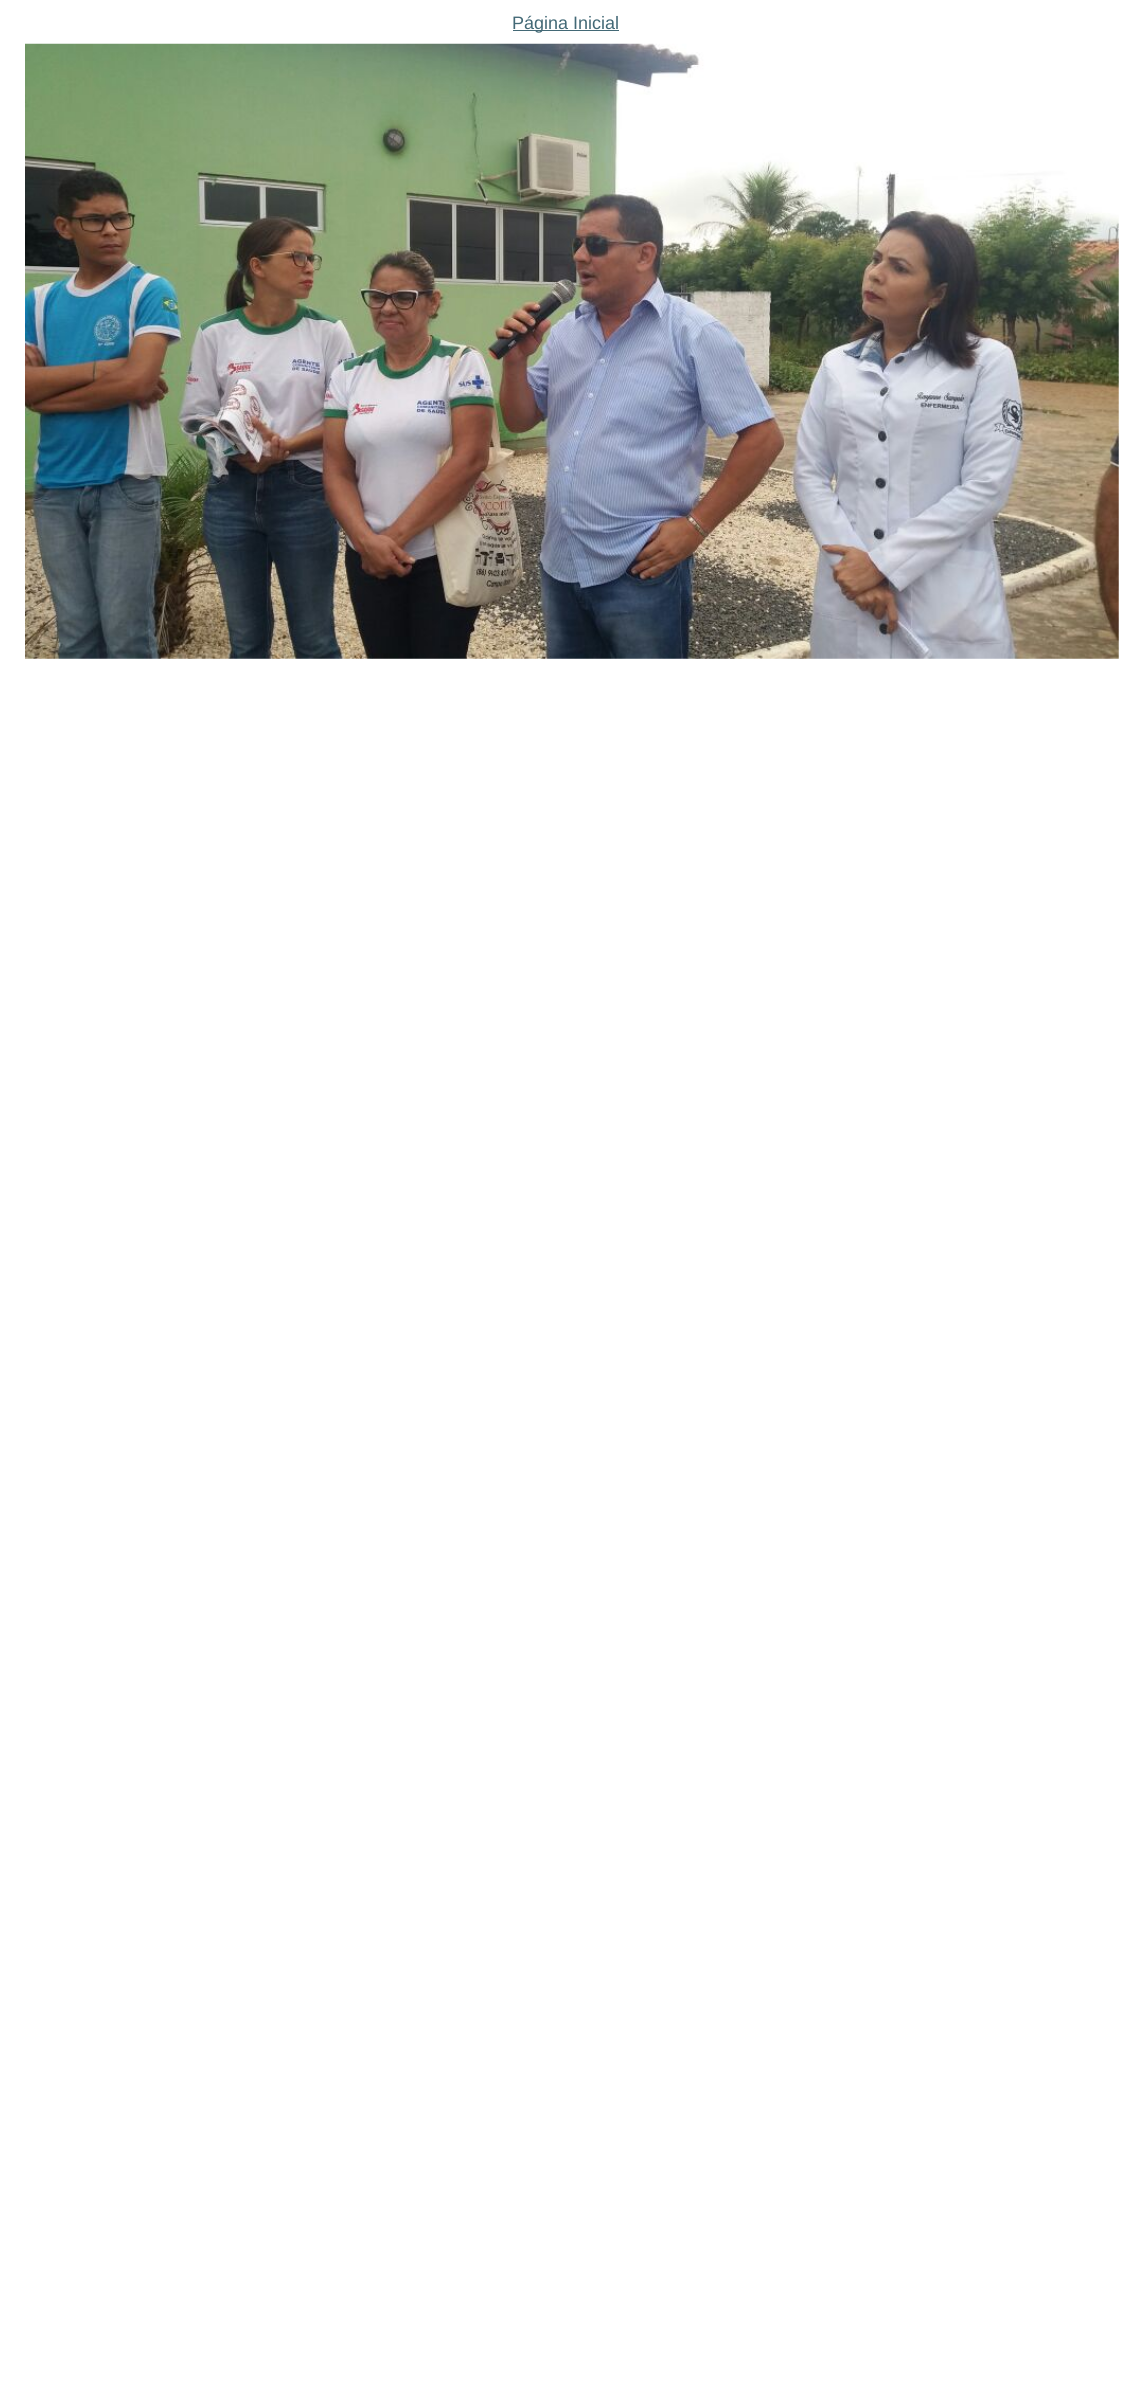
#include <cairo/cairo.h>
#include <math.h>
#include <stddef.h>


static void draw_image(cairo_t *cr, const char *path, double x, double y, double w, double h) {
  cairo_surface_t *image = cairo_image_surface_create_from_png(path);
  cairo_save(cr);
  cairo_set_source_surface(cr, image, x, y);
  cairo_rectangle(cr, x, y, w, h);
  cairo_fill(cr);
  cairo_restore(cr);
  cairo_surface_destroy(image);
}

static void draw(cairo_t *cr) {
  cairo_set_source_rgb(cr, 1, 1, 1);
  cairo_paint(cr);
  cairo_set_source_rgb(cr, 67 / 255.0, 105 / 255.0, 118 / 255.0);
  cairo_rectangle(cr, 513, 30, 106, 1);
  cairo_fill(cr);
  draw_image(cr, "images/1.png", 25, 43, 1094, 616);
  cairo_select_font_face(cr, "Liberation Sans", CAIRO_FONT_SLANT_NORMAL, CAIRO_FONT_WEIGHT_NORMAL);
  cairo_set_font_size(cr, 18);
  cairo_move_to(cr, 512, 29);
  cairo_show_text(cr, "Página Inicial");
}

int main(void) {
  cairo_surface_t *surface = cairo_image_surface_create(CAIRO_FORMAT_RGB24, 1131, 2402);
  cairo_t *cr = cairo_create(surface);
  cairo_font_options_t *options = cairo_font_options_create();
  cairo_font_options_set_hint_metrics(options, CAIRO_HINT_METRICS_OFF);
  cairo_font_options_set_hint_style(options, CAIRO_HINT_STYLE_NONE);
  cairo_set_font_options(cr, options);
  cairo_set_miter_limit(cr, 4);
  draw(cr);
  cairo_surface_write_to_png(surface, "out.png");
  cairo_font_options_destroy(options);
  cairo_destroy(cr);
  cairo_surface_destroy(surface);
  return 0;
}
